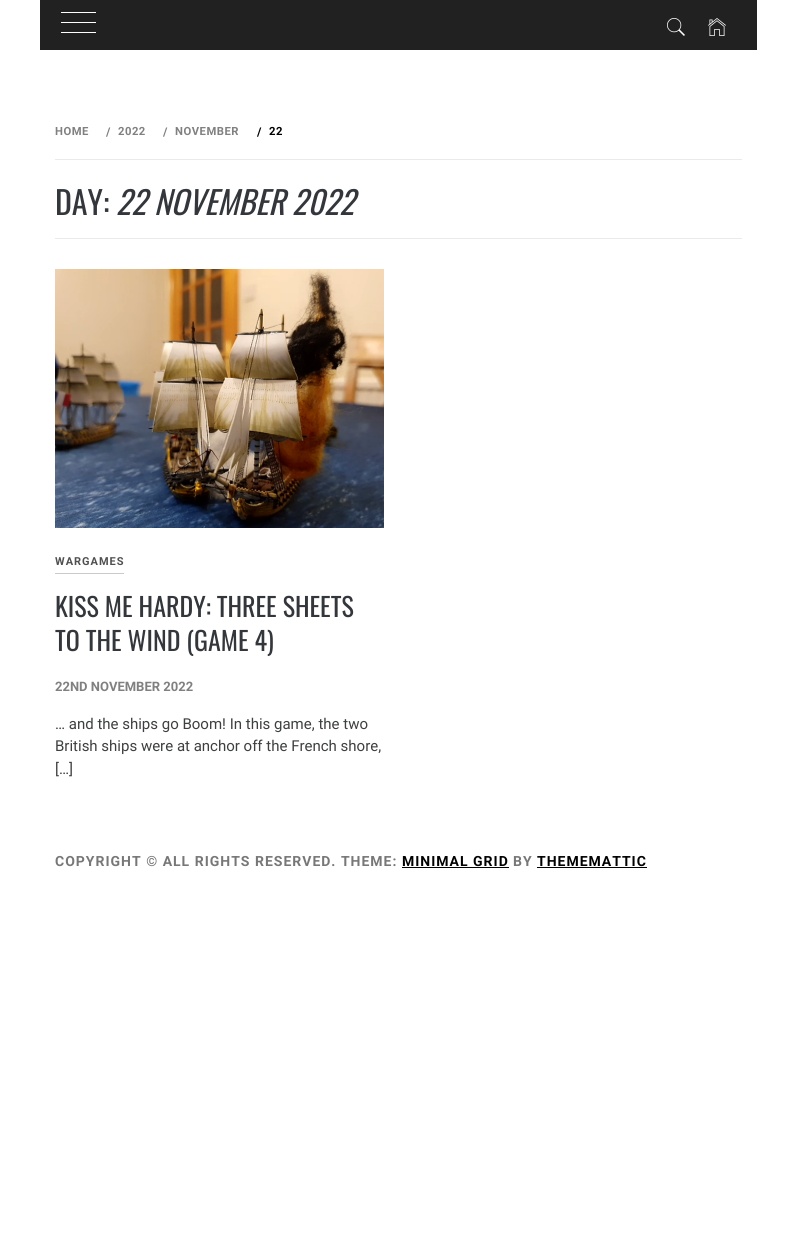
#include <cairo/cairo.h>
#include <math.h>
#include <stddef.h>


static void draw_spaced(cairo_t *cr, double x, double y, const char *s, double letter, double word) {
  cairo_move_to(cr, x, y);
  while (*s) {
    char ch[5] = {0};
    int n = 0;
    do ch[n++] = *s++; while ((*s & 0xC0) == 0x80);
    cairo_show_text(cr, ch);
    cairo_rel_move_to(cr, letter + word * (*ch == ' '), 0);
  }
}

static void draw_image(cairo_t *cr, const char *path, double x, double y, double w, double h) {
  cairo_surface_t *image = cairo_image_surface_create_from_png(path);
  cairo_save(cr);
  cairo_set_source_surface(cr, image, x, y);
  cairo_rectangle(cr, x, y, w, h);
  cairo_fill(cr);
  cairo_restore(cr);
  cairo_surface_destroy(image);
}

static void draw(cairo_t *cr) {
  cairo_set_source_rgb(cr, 1, 1, 1);
  cairo_paint(cr);
  cairo_set_source_rgb(cr, 33 / 255.0, 33 / 255.0, 33 / 255.0);
  cairo_rectangle(cr, 40, 0, 717, 50);
  cairo_fill(cr);
  cairo_set_source_rgb(cr, 1, 1, 1);
  cairo_rectangle(cr, 61, 12, 35, 1);
  cairo_fill(cr);
  cairo_rectangle(cr, 61, 22, 35, 1);
  cairo_fill(cr);
  cairo_rectangle(cr, 61, 32, 35, 1);
  cairo_fill(cr);
  draw_image(cr, "images/1.png", 667, 18, 18, 18);
  draw_image(cr, "images/2.png", 708, 18, 18, 18);
  cairo_set_source_rgb(cr, 234 / 255.0, 234 / 255.0, 234 / 255.0);
  cairo_rectangle(cr, 55, 238, 687, 1);
  cairo_fill(cr);
  cairo_rectangle(cr, 55, 159, 687, 1);
  cairo_fill(cr);
  draw_image(cr, "images/3.png", 55, 269, 329, 259);
  cairo_set_source_rgb(cr, 202 / 255.0, 202 / 255.0, 202 / 255.0);
  cairo_rectangle(cr, 55, 573, 69, 1);
  cairo_fill(cr);
  cairo_set_source_rgb(cr, 0, 0, 0);
  cairo_rectangle(cr, 402, 867, 107, 1);
  cairo_fill(cr);
  cairo_rectangle(cr, 537, 867, 110, 1);
  cairo_fill(cr);
  cairo_select_font_face(cr, "Roboto", CAIRO_FONT_SLANT_NORMAL, CAIRO_FONT_WEIGHT_BOLD);
  cairo_set_font_size(cr, 11.25);
  cairo_set_source_rgb(cr, 128 / 255.0, 128 / 255.0, 128 / 255.0);
  draw_spaced(cr, 55, 135, "HOME", 0.5, 0);
  cairo_set_font_size(cr, 12);
  draw_spaced(cr, 106, 136, "/", 0.5, 0);
  cairo_set_font_size(cr, 11.25);
  draw_spaced(cr, 118, 135, "2022", 0.5, 0);
  cairo_set_font_size(cr, 12);
  draw_spaced(cr, 163, 136, "/", 0.5, 0);
  cairo_set_font_size(cr, 11.25);
  draw_spaced(cr, 175, 135, "NOVEMBER", 0.5, 0);
  cairo_set_font_size(cr, 12);
  cairo_set_source_rgb(cr, 0, 0, 0);
  draw_spaced(cr, 257, 136, "/", 0.5, 0);
  cairo_set_font_size(cr, 11.25);
  draw_spaced(cr, 269, 135, "22", 0.5, 0);
  cairo_select_font_face(cr, "Oswald", CAIRO_FONT_SLANT_NORMAL, CAIRO_FONT_WEIGHT_NORMAL);
  cairo_set_font_size(cr, 32);
  cairo_set_source_rgb(cr, 51 / 255.0, 54 / 255.0, 59 / 255.0);
  cairo_move_to(cr, 55, 215);
  cairo_show_text(cr, "DAY:");
  cairo_select_font_face(cr, "Oswald", CAIRO_FONT_SLANT_ITALIC, CAIRO_FONT_WEIGHT_NORMAL);
  cairo_move_to(cr, 116, 215);
  cairo_show_text(cr, "22 NOVEMBER 2022");
  cairo_select_font_face(cr, "Roboto", CAIRO_FONT_SLANT_NORMAL, CAIRO_FONT_WEIGHT_BOLD);
  cairo_set_font_size(cr, 11);
  cairo_set_source_rgb(cr, 80 / 255.0, 80 / 255.0, 80 / 255.0);
  draw_spaced(cr, 55, 565, "WARGAMES", 1, 0);
  cairo_select_font_face(cr, "Oswald", CAIRO_FONT_SLANT_NORMAL, CAIRO_FONT_WEIGHT_NORMAL);
  cairo_set_font_size(cr, 26);
  cairo_set_source_rgb(cr, 51 / 255.0, 54 / 255.0, 59 / 255.0);
  cairo_move_to(cr, 55, 617);
  cairo_show_text(cr, "KISS ME HARDY: THREE SHEETS");
  cairo_move_to(cr, 55, 651);
  cairo_show_text(cr, "TO THE WIND (GAME 4)");
  cairo_select_font_face(cr, "Roboto", CAIRO_FONT_SLANT_NORMAL, CAIRO_FONT_WEIGHT_BOLD);
  cairo_set_font_size(cr, 13);
  cairo_set_source_rgb(cr, 128 / 255.0, 128 / 255.0, 128 / 255.0);
  cairo_move_to(cr, 55, 691);
  cairo_show_text(cr, "22ND NOVEMBER 2022");
  cairo_select_font_face(cr, "Roboto", CAIRO_FONT_SLANT_NORMAL, CAIRO_FONT_WEIGHT_NORMAL);
  cairo_set_font_size(cr, 15);
  cairo_set_source_rgb(cr, 62 / 255.0, 63 / 255.0, 64 / 255.0);
  cairo_move_to(cr, 55, 729);
  cairo_show_text(cr, "… and the ships go Boom! In this game, the two");
  cairo_move_to(cr, 55, 751);
  cairo_show_text(cr, "British ships were at anchor off the French shore,");
  cairo_move_to(cr, 55, 774);
  cairo_show_text(cr, "[…]");
  cairo_select_font_face(cr, "Roboto", CAIRO_FONT_SLANT_NORMAL, CAIRO_FONT_WEIGHT_BOLD);
  cairo_set_font_size(cr, 14);
  cairo_set_source_rgb(cr, 119 / 255.0, 119 / 255.0, 119 / 255.0);
  draw_spaced(cr, 55, 866, "COPYRIGHT © ALL RIGHTS RESERVED. THEME:", 1, 0);
  cairo_set_source_rgb(cr, 0, 0, 0);
  draw_spaced(cr, 402, 866, "MINIMAL GRID", 1, 0);
  cairo_set_source_rgb(cr, 119 / 255.0, 119 / 255.0, 119 / 255.0);
  draw_spaced(cr, 513, 866, "BY", 1, 0);
  cairo_set_source_rgb(cr, 0, 0, 0);
  draw_spaced(cr, 537, 866, "THEMEMATTIC", 1, 0);
}

int main(void) {
  cairo_surface_t *surface = cairo_image_surface_create(CAIRO_FORMAT_RGB24, 797, 1236);
  cairo_t *cr = cairo_create(surface);
  cairo_font_options_t *options = cairo_font_options_create();
  cairo_font_options_set_hint_metrics(options, CAIRO_HINT_METRICS_OFF);
  cairo_font_options_set_hint_style(options, CAIRO_HINT_STYLE_NONE);
  cairo_set_font_options(cr, options);
  cairo_set_miter_limit(cr, 4);
  draw(cr);
  cairo_surface_write_to_png(surface, "out.png");
  cairo_font_options_destroy(options);
  cairo_destroy(cr);
  cairo_surface_destroy(surface);
  return 0;
}
